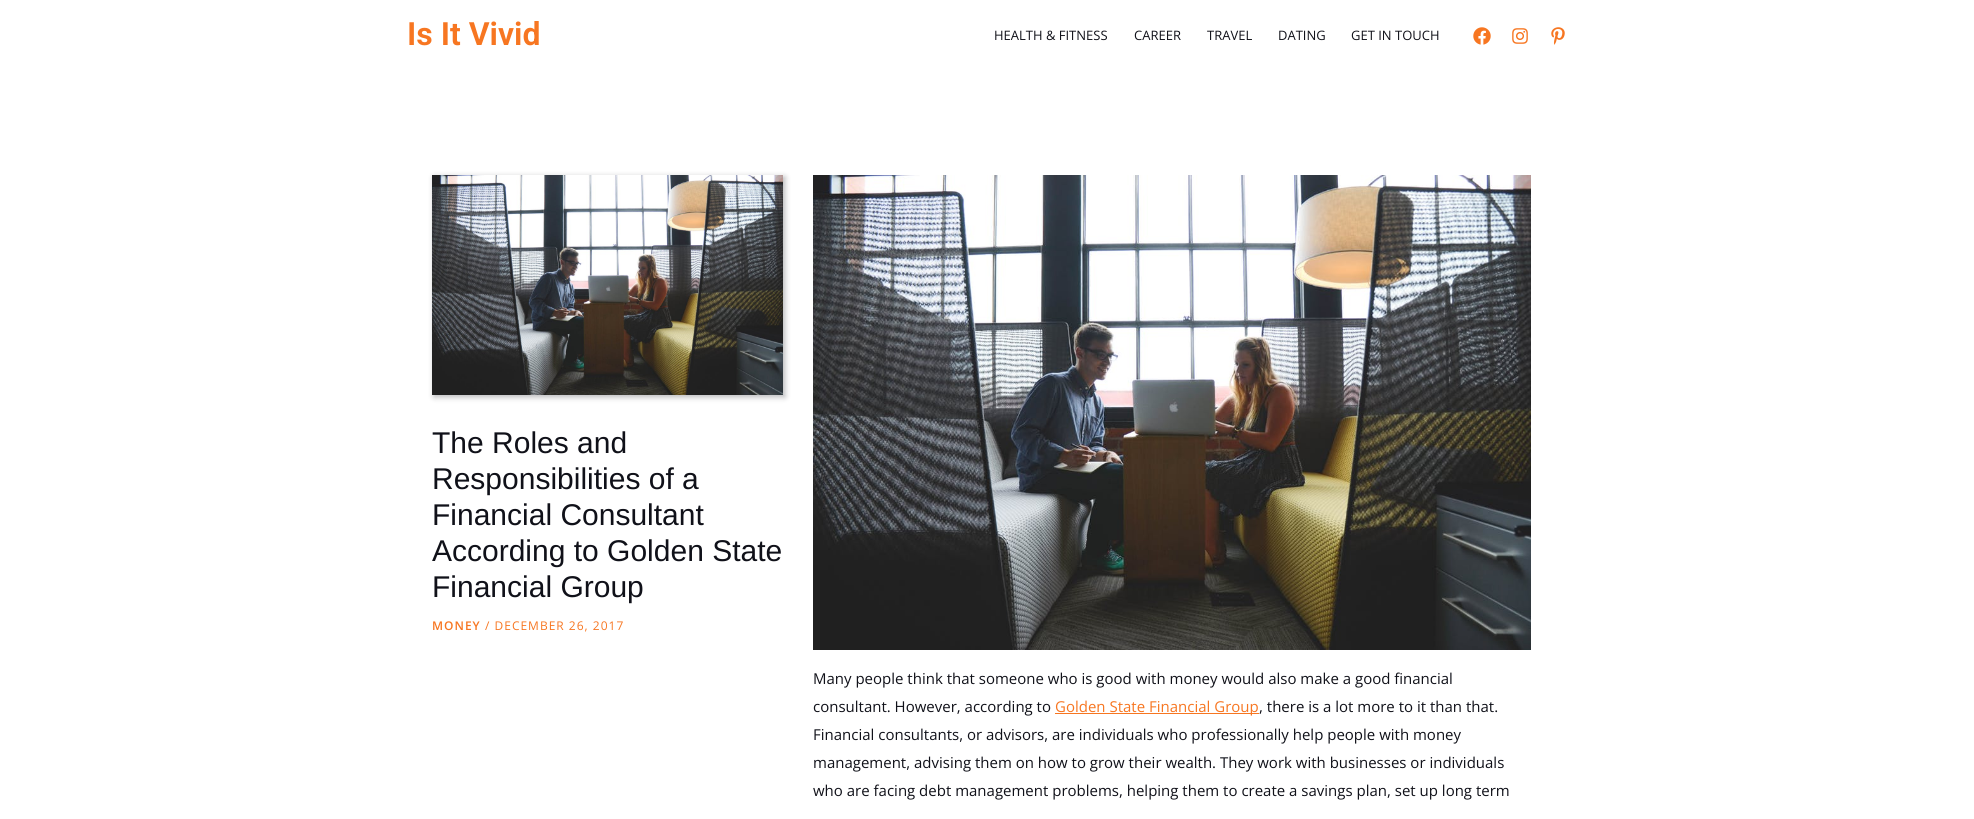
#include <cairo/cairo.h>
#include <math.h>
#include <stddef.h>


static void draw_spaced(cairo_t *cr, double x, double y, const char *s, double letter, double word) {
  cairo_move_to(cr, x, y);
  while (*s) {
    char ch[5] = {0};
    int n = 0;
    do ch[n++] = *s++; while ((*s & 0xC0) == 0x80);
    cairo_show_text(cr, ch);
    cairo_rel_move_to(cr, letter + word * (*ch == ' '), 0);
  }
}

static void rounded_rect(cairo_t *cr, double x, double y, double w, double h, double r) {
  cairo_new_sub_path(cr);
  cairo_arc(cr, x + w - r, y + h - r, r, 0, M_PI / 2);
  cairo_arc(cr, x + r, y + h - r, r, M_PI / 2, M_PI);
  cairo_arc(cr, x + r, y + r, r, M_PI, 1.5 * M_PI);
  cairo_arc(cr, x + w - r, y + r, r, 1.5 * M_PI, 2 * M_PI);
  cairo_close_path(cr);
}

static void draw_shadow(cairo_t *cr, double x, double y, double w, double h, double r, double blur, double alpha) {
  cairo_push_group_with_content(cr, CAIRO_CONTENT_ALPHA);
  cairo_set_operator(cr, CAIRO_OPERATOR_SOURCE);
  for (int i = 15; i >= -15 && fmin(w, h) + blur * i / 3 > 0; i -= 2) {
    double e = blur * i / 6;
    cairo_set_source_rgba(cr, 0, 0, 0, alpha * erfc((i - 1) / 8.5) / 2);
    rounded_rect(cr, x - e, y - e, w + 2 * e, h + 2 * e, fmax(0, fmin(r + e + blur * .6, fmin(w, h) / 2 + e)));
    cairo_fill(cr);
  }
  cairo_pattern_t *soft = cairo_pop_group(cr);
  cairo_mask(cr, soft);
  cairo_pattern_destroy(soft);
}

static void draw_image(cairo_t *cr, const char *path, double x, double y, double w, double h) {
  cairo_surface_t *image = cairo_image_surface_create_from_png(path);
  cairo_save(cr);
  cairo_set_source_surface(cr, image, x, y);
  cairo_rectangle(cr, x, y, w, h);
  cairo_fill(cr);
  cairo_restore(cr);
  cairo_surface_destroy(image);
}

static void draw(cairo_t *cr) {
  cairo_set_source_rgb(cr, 1, 1, 1);
  cairo_paint(cr);
  draw_image(cr, "images/1.png", 1473, 27, 18, 18);
  draw_image(cr, "images/2.png", 1512, 28, 16, 16);
  draw_image(cr, "images/3.png", 1551, 27, 14, 18);
  cairo_set_source_rgb(cr, 16 / 255.0, 17 / 255.0, 25 / 255.0);
  draw_shadow(cr, 434, 177, 351, 220, 0, 3, 0.3);
  draw_image(cr, "images/4.png", 432, 175, 351, 220);
  draw_image(cr, "images/5.png", 813, 175, 718, 475);
  cairo_set_source_rgb(cr, 247 / 255.0, 118 / 255.0, 33 / 255.0);
  cairo_rectangle(cr, 1055, 713, 204, 1);
  cairo_fill(cr);
  cairo_select_font_face(cr, "Heebo SemiBold", CAIRO_FONT_SLANT_NORMAL, CAIRO_FONT_WEIGHT_NORMAL);
  cairo_set_font_size(cr, 32);
  cairo_move_to(cr, 407, 45);
  cairo_show_text(cr, "Is It Vivid");
  cairo_select_font_face(cr, "Open Sans", CAIRO_FONT_SLANT_NORMAL, CAIRO_FONT_WEIGHT_NORMAL);
  cairo_set_font_size(cr, 13);
  cairo_set_source_rgb(cr, 16 / 255.0, 17 / 255.0, 25 / 255.0);
  cairo_move_to(cr, 994, 40);
  cairo_show_text(cr, "HEALTH & FITNESS");
  cairo_move_to(cr, 1134, 40);
  cairo_show_text(cr, "CAREER");
  cairo_move_to(cr, 1207, 40);
  cairo_show_text(cr, "TRAVEL");
  cairo_move_to(cr, 1278, 40);
  cairo_show_text(cr, "DATING");
  cairo_move_to(cr, 1351, 40);
  cairo_show_text(cr, "GET IN TOUCH");
  cairo_select_font_face(cr, "Liberation Sans", CAIRO_FONT_SLANT_NORMAL, CAIRO_FONT_WEIGHT_NORMAL);
  cairo_set_font_size(cr, 30);
  cairo_move_to(cr, 432, 453);
  cairo_show_text(cr, "The Roles and");
  cairo_move_to(cr, 432, 489);
  cairo_show_text(cr, "Responsibilities of a");
  cairo_move_to(cr, 432, 525);
  cairo_show_text(cr, "Financial Consultant");
  cairo_move_to(cr, 432, 561);
  cairo_show_text(cr, "According to Golden State");
  cairo_move_to(cr, 432, 597);
  cairo_show_text(cr, "Financial Group");
  cairo_select_font_face(cr, "Open Sans SemiBold", CAIRO_FONT_SLANT_NORMAL, CAIRO_FONT_WEIGHT_NORMAL);
  cairo_set_font_size(cr, 12);
  cairo_set_source_rgb(cr, 247 / 255.0, 118 / 255.0, 33 / 255.0);
  draw_spaced(cr, 432, 630, "MONEY", 1, 0);
  cairo_select_font_face(cr, "Open Sans", CAIRO_FONT_SLANT_NORMAL, CAIRO_FONT_WEIGHT_NORMAL);
  draw_spaced(cr, 485, 630, "/ DECEMBER 26, 2017", 1, 0);
  cairo_set_font_size(cr, 15);
  cairo_set_source_rgb(cr, 16 / 255.0, 17 / 255.0, 25 / 255.0);
  cairo_move_to(cr, 813, 684);
  cairo_show_text(cr, "Many people think that someone who is good with money would also make a good financial");
  cairo_move_to(cr, 813, 712);
  cairo_show_text(cr, "consultant. However, according to");
  cairo_set_source_rgb(cr, 247 / 255.0, 118 / 255.0, 33 / 255.0);
  cairo_move_to(cr, 1055, 712);
  cairo_show_text(cr, "Golden State Financial Group");
  cairo_set_source_rgb(cr, 16 / 255.0, 17 / 255.0, 25 / 255.0);
  cairo_move_to(cr, 1259, 712);
  cairo_show_text(cr, ", there is a lot more to it than that.");
  cairo_move_to(cr, 813, 740);
  cairo_show_text(cr, "Financial consultants, or advisors, are individuals who professionally help people with money");
  cairo_move_to(cr, 813, 768);
  cairo_show_text(cr, "management, advising them on how to grow their wealth. They work with businesses or individuals");
  cairo_move_to(cr, 813, 796);
  cairo_show_text(cr, "who are facing debt management problems, helping them to create a savings plan, set up long term");
}

int main(void) {
  cairo_surface_t *surface = cairo_image_surface_create(CAIRO_FORMAT_RGB24, 1974, 819);
  cairo_t *cr = cairo_create(surface);
  cairo_font_options_t *options = cairo_font_options_create();
  cairo_font_options_set_hint_metrics(options, CAIRO_HINT_METRICS_OFF);
  cairo_font_options_set_hint_style(options, CAIRO_HINT_STYLE_NONE);
  cairo_set_font_options(cr, options);
  cairo_set_miter_limit(cr, 4);
  draw(cr);
  cairo_surface_write_to_png(surface, "out.png");
  cairo_font_options_destroy(options);
  cairo_destroy(cr);
  cairo_surface_destroy(surface);
  return 0;
}
